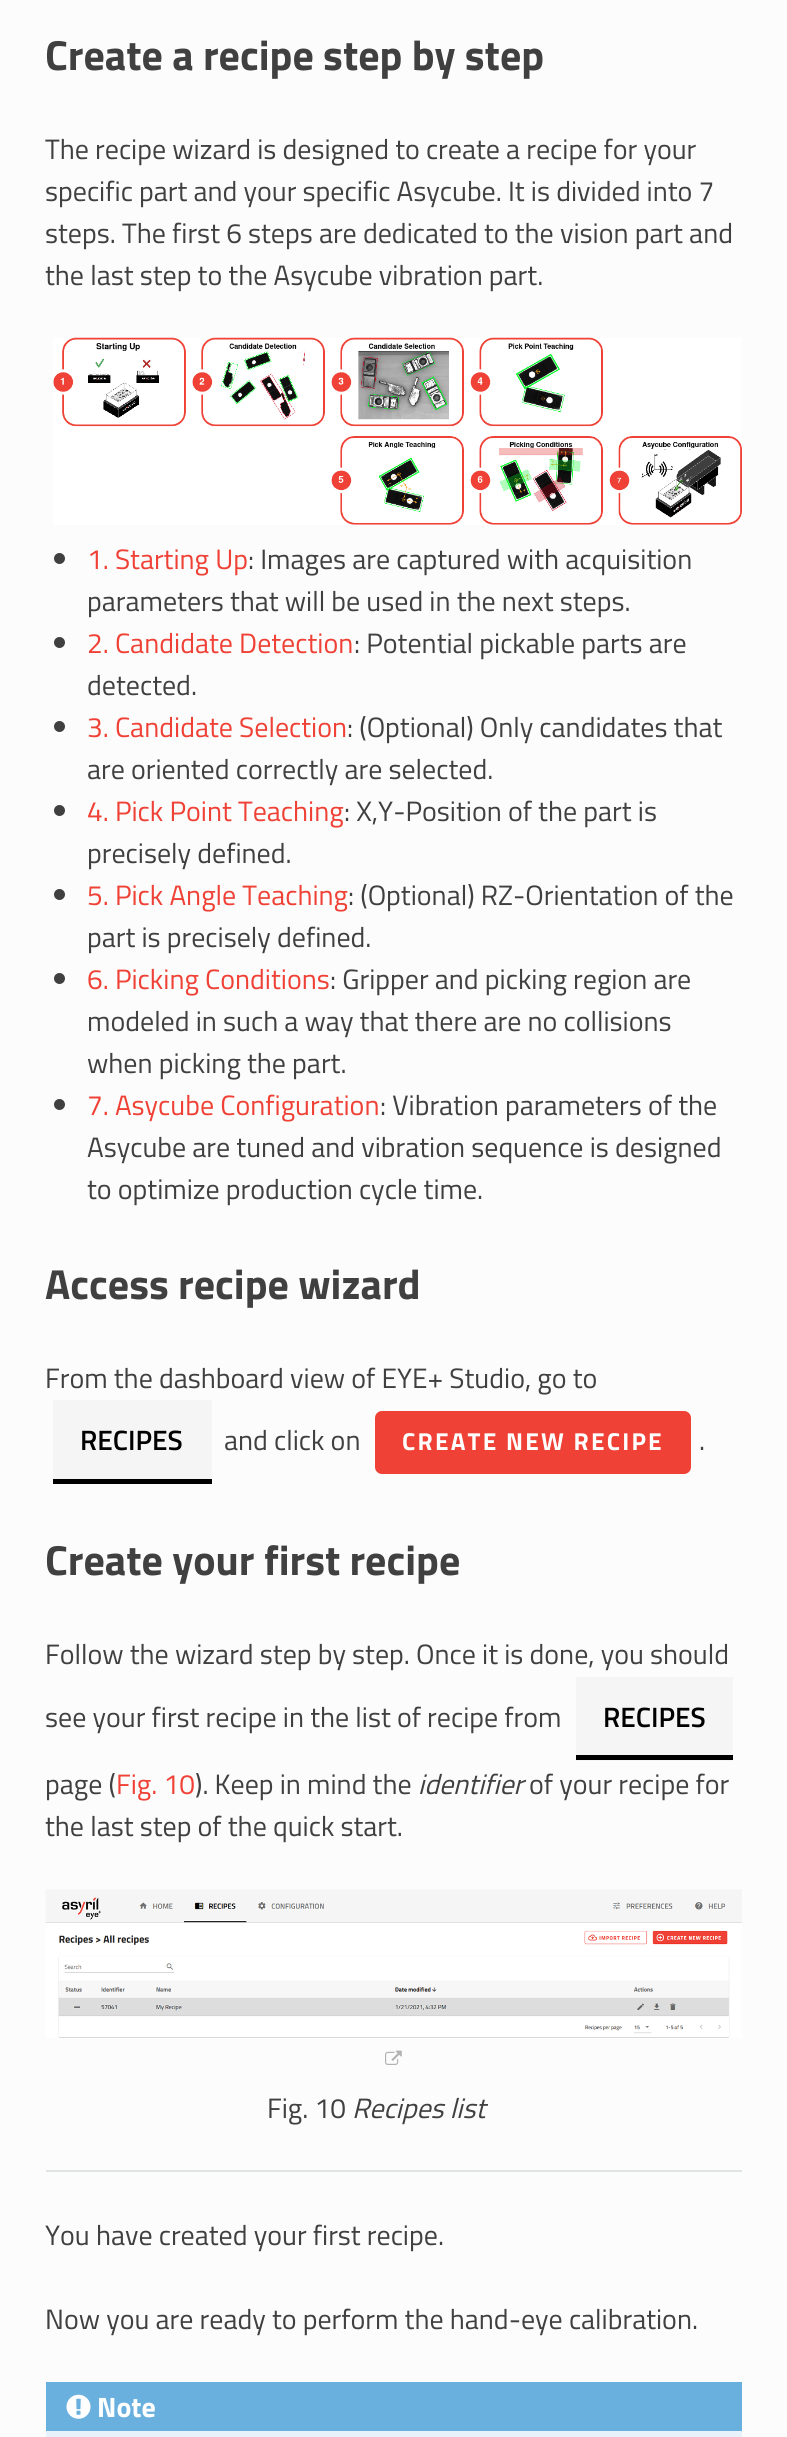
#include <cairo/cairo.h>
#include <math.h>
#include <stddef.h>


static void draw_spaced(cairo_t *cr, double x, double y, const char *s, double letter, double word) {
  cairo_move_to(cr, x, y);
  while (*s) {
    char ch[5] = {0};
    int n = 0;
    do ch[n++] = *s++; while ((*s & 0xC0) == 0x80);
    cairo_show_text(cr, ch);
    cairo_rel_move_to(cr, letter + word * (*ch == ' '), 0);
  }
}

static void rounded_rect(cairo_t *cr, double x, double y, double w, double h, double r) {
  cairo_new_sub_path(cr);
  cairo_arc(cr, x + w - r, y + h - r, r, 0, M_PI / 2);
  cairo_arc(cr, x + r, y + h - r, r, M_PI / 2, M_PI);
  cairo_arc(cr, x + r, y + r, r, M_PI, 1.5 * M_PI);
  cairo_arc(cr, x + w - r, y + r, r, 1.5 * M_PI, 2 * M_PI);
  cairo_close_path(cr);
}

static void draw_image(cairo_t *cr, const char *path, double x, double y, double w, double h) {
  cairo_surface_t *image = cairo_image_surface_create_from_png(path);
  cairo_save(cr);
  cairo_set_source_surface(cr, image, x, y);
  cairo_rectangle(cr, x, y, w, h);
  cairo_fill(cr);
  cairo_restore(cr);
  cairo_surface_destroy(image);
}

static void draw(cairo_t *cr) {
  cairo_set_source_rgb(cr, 252 / 255.0, 252 / 255.0, 252 / 255.0);
  cairo_paint(cr);
  draw_image(cr, "images/1.png", 53, 337, 689, 188);
  cairo_set_source_rgb(cr, 64 / 255.0, 64 / 255.0, 64 / 255.0);
  cairo_arc(cr, 59.5, 558.5, 5.5, 0, 2 * M_PI);
  cairo_fill(cr);
  cairo_arc(cr, 59.5, 642.5, 5.5, 0, 2 * M_PI);
  cairo_fill(cr);
  cairo_arc(cr, 59.5, 726.5, 5.5, 0, 2 * M_PI);
  cairo_fill(cr);
  cairo_arc(cr, 59.5, 810.5, 5.5, 0, 2 * M_PI);
  cairo_fill(cr);
  cairo_arc(cr, 59.5, 894.5, 5.5, 0, 2 * M_PI);
  cairo_fill(cr);
  cairo_arc(cr, 59.5, 978.5, 5.5, 0, 2 * M_PI);
  cairo_fill(cr);
  cairo_arc(cr, 59.5, 1104.5, 5.5, 0, 2 * M_PI);
  cairo_fill(cr);
  cairo_set_source_rgb(cr, 245 / 255.0, 245 / 255.0, 245 / 255.0);
  cairo_rectangle(cr, 53, 1400, 159, 79);
  cairo_fill(cr);
  cairo_set_source_rgb(cr, 0, 0, 0);
  cairo_rectangle(cr, 53, 1479, 159, 5);
  cairo_fill(cr);
  cairo_set_source_rgb(cr, 239 / 255.0, 65 / 255.0, 53 / 255.0);
  rounded_rect(cr, 375, 1411, 316, 63, 7);
  cairo_fill(cr);
  cairo_set_source_rgb(cr, 245 / 255.0, 245 / 255.0, 245 / 255.0);
  cairo_rectangle(cr, 576, 1677, 157, 84);
  cairo_fill(cr);
  cairo_set_source_rgb(cr, 0, 0, 0);
  cairo_rectangle(cr, 576, 1755, 157, 5);
  cairo_fill(cr);
  draw_image(cr, "images/2.png", 45, 1889, 697, 149);
  draw_image(cr, "images/3.png", 385, 2050, 17, 15);
  cairo_set_source_rgb(cr, 225 / 255.0, 228 / 255.0, 229 / 255.0);
  cairo_rectangle(cr, 46, 2170, 696, 2);
  cairo_fill(cr);
  cairo_set_source_rgb(cr, 231 / 255.0, 242 / 255.0, 250 / 255.0);
  cairo_rectangle(cr, 46, 2431, 696, 6);
  cairo_fill(cr);
  cairo_set_source_rgb(cr, 106 / 255.0, 176 / 255.0, 222 / 255.0);
  cairo_rectangle(cr, 46, 2382, 696, 49);
  cairo_fill(cr);
  draw_image(cr, "images/4.png", 66, 2394, 25, 25);
  cairo_select_font_face(cr, "Titillium Web", CAIRO_FONT_SLANT_NORMAL, CAIRO_FONT_WEIGHT_BOLD);
  cairo_set_font_size(cr, 42);
  cairo_set_source_rgb(cr, 64 / 255.0, 64 / 255.0, 64 / 255.0);
  cairo_move_to(cr, 45, 70);
  cairo_show_text(cr, "Create a recipe step by step");
  cairo_select_font_face(cr, "Titillium Web", CAIRO_FONT_SLANT_NORMAL, CAIRO_FONT_WEIGHT_NORMAL);
  cairo_set_font_size(cr, 28);
  cairo_move_to(cr, 45, 159);
  cairo_show_text(cr, "The recipe wizard is designed to create a recipe for your");
  cairo_move_to(cr, 45, 201);
  cairo_show_text(cr, "specific part and your specific Asycube. It is divided into 7");
  cairo_move_to(cr, 45, 243);
  cairo_show_text(cr, "steps. The first 6 steps are dedicated to the vision part and");
  cairo_move_to(cr, 45, 285);
  cairo_show_text(cr, "the last step to the Asycube vibration part.");
  cairo_set_source_rgb(cr, 239 / 255.0, 65 / 255.0, 53 / 255.0);
  cairo_move_to(cr, 87, 569);
  cairo_show_text(cr, "1. Starting Up");
  cairo_set_source_rgb(cr, 64 / 255.0, 64 / 255.0, 64 / 255.0);
  cairo_move_to(cr, 248, 569);
  cairo_show_text(cr, ": Images are captured with acquisition");
  cairo_move_to(cr, 87, 611);
  cairo_show_text(cr, "parameters that will be used in the next steps.");
  cairo_set_source_rgb(cr, 239 / 255.0, 65 / 255.0, 53 / 255.0);
  cairo_move_to(cr, 87, 653);
  cairo_show_text(cr, "2. Candidate Detection");
  cairo_set_source_rgb(cr, 64 / 255.0, 64 / 255.0, 64 / 255.0);
  cairo_move_to(cr, 354, 653);
  cairo_show_text(cr, ": Potential pickable parts are");
  cairo_move_to(cr, 87, 695);
  cairo_show_text(cr, "detected.");
  cairo_set_source_rgb(cr, 239 / 255.0, 65 / 255.0, 53 / 255.0);
  cairo_move_to(cr, 87, 737);
  cairo_show_text(cr, "3. Candidate Selection");
  cairo_set_source_rgb(cr, 64 / 255.0, 64 / 255.0, 64 / 255.0);
  cairo_move_to(cr, 347, 737);
  cairo_show_text(cr, ": (Optional) Only candidates that");
  cairo_move_to(cr, 87, 779);
  cairo_show_text(cr, "are oriented correctly are selected.");
  cairo_set_source_rgb(cr, 239 / 255.0, 65 / 255.0, 53 / 255.0);
  cairo_move_to(cr, 87, 821);
  cairo_show_text(cr, "4. Pick Point Teaching");
  cairo_set_source_rgb(cr, 64 / 255.0, 64 / 255.0, 64 / 255.0);
  cairo_move_to(cr, 344, 821);
  cairo_show_text(cr, ": X,Y-Position of the part is");
  cairo_move_to(cr, 87, 863);
  cairo_show_text(cr, "precisely defined.");
  cairo_set_source_rgb(cr, 239 / 255.0, 65 / 255.0, 53 / 255.0);
  cairo_move_to(cr, 87, 905);
  cairo_show_text(cr, "5. Pick Angle Teaching");
  cairo_set_source_rgb(cr, 64 / 255.0, 64 / 255.0, 64 / 255.0);
  cairo_move_to(cr, 348, 905);
  cairo_show_text(cr, ": (Optional) RZ-Orientation of the");
  cairo_move_to(cr, 87, 947);
  cairo_show_text(cr, "part is precisely defined.");
  cairo_set_source_rgb(cr, 239 / 255.0, 65 / 255.0, 53 / 255.0);
  cairo_move_to(cr, 87, 989);
  cairo_show_text(cr, "6. Picking Conditions");
  cairo_set_source_rgb(cr, 64 / 255.0, 64 / 255.0, 64 / 255.0);
  cairo_move_to(cr, 330, 989);
  cairo_show_text(cr, ": Gripper and picking region are");
  cairo_move_to(cr, 87, 1031);
  cairo_show_text(cr, "modeled in such a way that there are no collisions");
  cairo_move_to(cr, 87, 1073);
  cairo_show_text(cr, "when picking the part.");
  cairo_set_source_rgb(cr, 239 / 255.0, 65 / 255.0, 53 / 255.0);
  cairo_move_to(cr, 87, 1115);
  cairo_show_text(cr, "7. Asycube Configuration");
  cairo_set_source_rgb(cr, 64 / 255.0, 64 / 255.0, 64 / 255.0);
  cairo_move_to(cr, 380, 1115);
  cairo_show_text(cr, ": Vibration parameters of the");
  cairo_move_to(cr, 87, 1157);
  cairo_show_text(cr, "Asycube are tuned and vibration sequence is designed");
  cairo_move_to(cr, 87, 1199);
  cairo_show_text(cr, "to optimize production cycle time.");
  cairo_select_font_face(cr, "Titillium Web", CAIRO_FONT_SLANT_NORMAL, CAIRO_FONT_WEIGHT_BOLD);
  cairo_set_font_size(cr, 42);
  cairo_move_to(cr, 45, 1299);
  cairo_show_text(cr, "Access recipe wizard");
  cairo_select_font_face(cr, "Titillium Web", CAIRO_FONT_SLANT_NORMAL, CAIRO_FONT_WEIGHT_NORMAL);
  cairo_set_font_size(cr, 28);
  cairo_move_to(cr, 45, 1388);
  cairo_show_text(cr, "From the dashboard view of EYE+ Studio, go to");
  cairo_select_font_face(cr, "Titillium Web SemiBold", CAIRO_FONT_SLANT_NORMAL, CAIRO_FONT_WEIGHT_NORMAL);
  cairo_set_source_rgb(cr, 0, 0, 0);
  cairo_move_to(cr, 80, 1450);
  cairo_show_text(cr, "RECIPES");
  cairo_select_font_face(cr, "Titillium Web", CAIRO_FONT_SLANT_NORMAL, CAIRO_FONT_WEIGHT_NORMAL);
  cairo_set_source_rgb(cr, 64 / 255.0, 64 / 255.0, 64 / 255.0);
  cairo_move_to(cr, 224, 1450);
  cairo_show_text(cr, "and click on");
  cairo_select_font_face(cr, "Titillium Web", CAIRO_FONT_SLANT_NORMAL, CAIRO_FONT_WEIGHT_BOLD);
  cairo_set_font_size(cr, 24.5);
  cairo_set_source_rgb(cr, 1, 1, 1);
  draw_spaced(cr, 402, 1450, "CREATE NEW RECIPE", 2.2, 0);
  cairo_select_font_face(cr, "Titillium Web", CAIRO_FONT_SLANT_NORMAL, CAIRO_FONT_WEIGHT_NORMAL);
  cairo_set_font_size(cr, 28);
  cairo_set_source_rgb(cr, 64 / 255.0, 64 / 255.0, 64 / 255.0);
  cairo_move_to(cr, 699, 1450);
  cairo_show_text(cr, ".");
  cairo_select_font_face(cr, "Titillium Web", CAIRO_FONT_SLANT_NORMAL, CAIRO_FONT_WEIGHT_BOLD);
  cairo_set_font_size(cr, 42);
  cairo_move_to(cr, 45, 1575);
  cairo_show_text(cr, "Create your first recipe");
  cairo_select_font_face(cr, "Titillium Web", CAIRO_FONT_SLANT_NORMAL, CAIRO_FONT_WEIGHT_NORMAL);
  cairo_set_font_size(cr, 28);
  cairo_move_to(cr, 45, 1664);
  cairo_show_text(cr, "Follow the wizard step by step. Once it is done, you should");
  cairo_move_to(cr, 45, 1727);
  cairo_show_text(cr, "see your first recipe in the list of recipe from");
  cairo_select_font_face(cr, "Titillium Web SemiBold", CAIRO_FONT_SLANT_NORMAL, CAIRO_FONT_WEIGHT_NORMAL);
  cairo_set_source_rgb(cr, 0, 0, 0);
  cairo_move_to(cr, 603, 1727);
  cairo_show_text(cr, "RECIPES");
  cairo_select_font_face(cr, "Titillium Web", CAIRO_FONT_SLANT_NORMAL, CAIRO_FONT_WEIGHT_NORMAL);
  cairo_set_source_rgb(cr, 64 / 255.0, 64 / 255.0, 64 / 255.0);
  cairo_move_to(cr, 45, 1794);
  cairo_show_text(cr, "page (");
  cairo_set_source_rgb(cr, 239 / 255.0, 65 / 255.0, 53 / 255.0);
  cairo_move_to(cr, 116, 1794);
  cairo_show_text(cr, "Fig. 10");
  cairo_set_source_rgb(cr, 64 / 255.0, 64 / 255.0, 64 / 255.0);
  cairo_move_to(cr, 195, 1794);
  cairo_show_text(cr, "). Keep in mind the");
  cairo_select_font_face(cr, "Titillium Web", CAIRO_FONT_SLANT_ITALIC, CAIRO_FONT_WEIGHT_NORMAL);
  cairo_move_to(cr, 418, 1794);
  cairo_show_text(cr, "identifier");
  cairo_select_font_face(cr, "Titillium Web", CAIRO_FONT_SLANT_NORMAL, CAIRO_FONT_WEIGHT_NORMAL);
  cairo_move_to(cr, 529, 1794);
  cairo_show_text(cr, "of your recipe for");
  cairo_move_to(cr, 45, 1836);
  cairo_show_text(cr, "the last step of the quick start.");
  cairo_move_to(cr, 267, 2118);
  cairo_show_text(cr, "Fig. 10");
  cairo_select_font_face(cr, "Titillium Web", CAIRO_FONT_SLANT_ITALIC, CAIRO_FONT_WEIGHT_NORMAL);
  cairo_move_to(cr, 352, 2118);
  cairo_show_text(cr, "Recipes list");
  cairo_select_font_face(cr, "Titillium Web", CAIRO_FONT_SLANT_NORMAL, CAIRO_FONT_WEIGHT_NORMAL);
  cairo_move_to(cr, 45, 2245);
  cairo_show_text(cr, "You have created your first recipe.");
  cairo_move_to(cr, 45, 2329);
  cairo_show_text(cr, "Now you are ready to perform the hand-eye calibration.");
  cairo_select_font_face(cr, "Titillium Web", CAIRO_FONT_SLANT_NORMAL, CAIRO_FONT_WEIGHT_BOLD);
  cairo_set_source_rgb(cr, 1, 1, 1);
  cairo_move_to(cr, 97, 2417);
  cairo_show_text(cr, "Note");
}

int main(void) {
  cairo_surface_t *surface = cairo_image_surface_create(CAIRO_FORMAT_RGB24, 787, 2437);
  cairo_t *cr = cairo_create(surface);
  cairo_font_options_t *options = cairo_font_options_create();
  cairo_font_options_set_hint_metrics(options, CAIRO_HINT_METRICS_OFF);
  cairo_font_options_set_hint_style(options, CAIRO_HINT_STYLE_NONE);
  cairo_set_font_options(cr, options);
  cairo_set_miter_limit(cr, 4);
  draw(cr);
  cairo_surface_write_to_png(surface, "out.png");
  cairo_font_options_destroy(options);
  cairo_destroy(cr);
  cairo_surface_destroy(surface);
  return 0;
}
